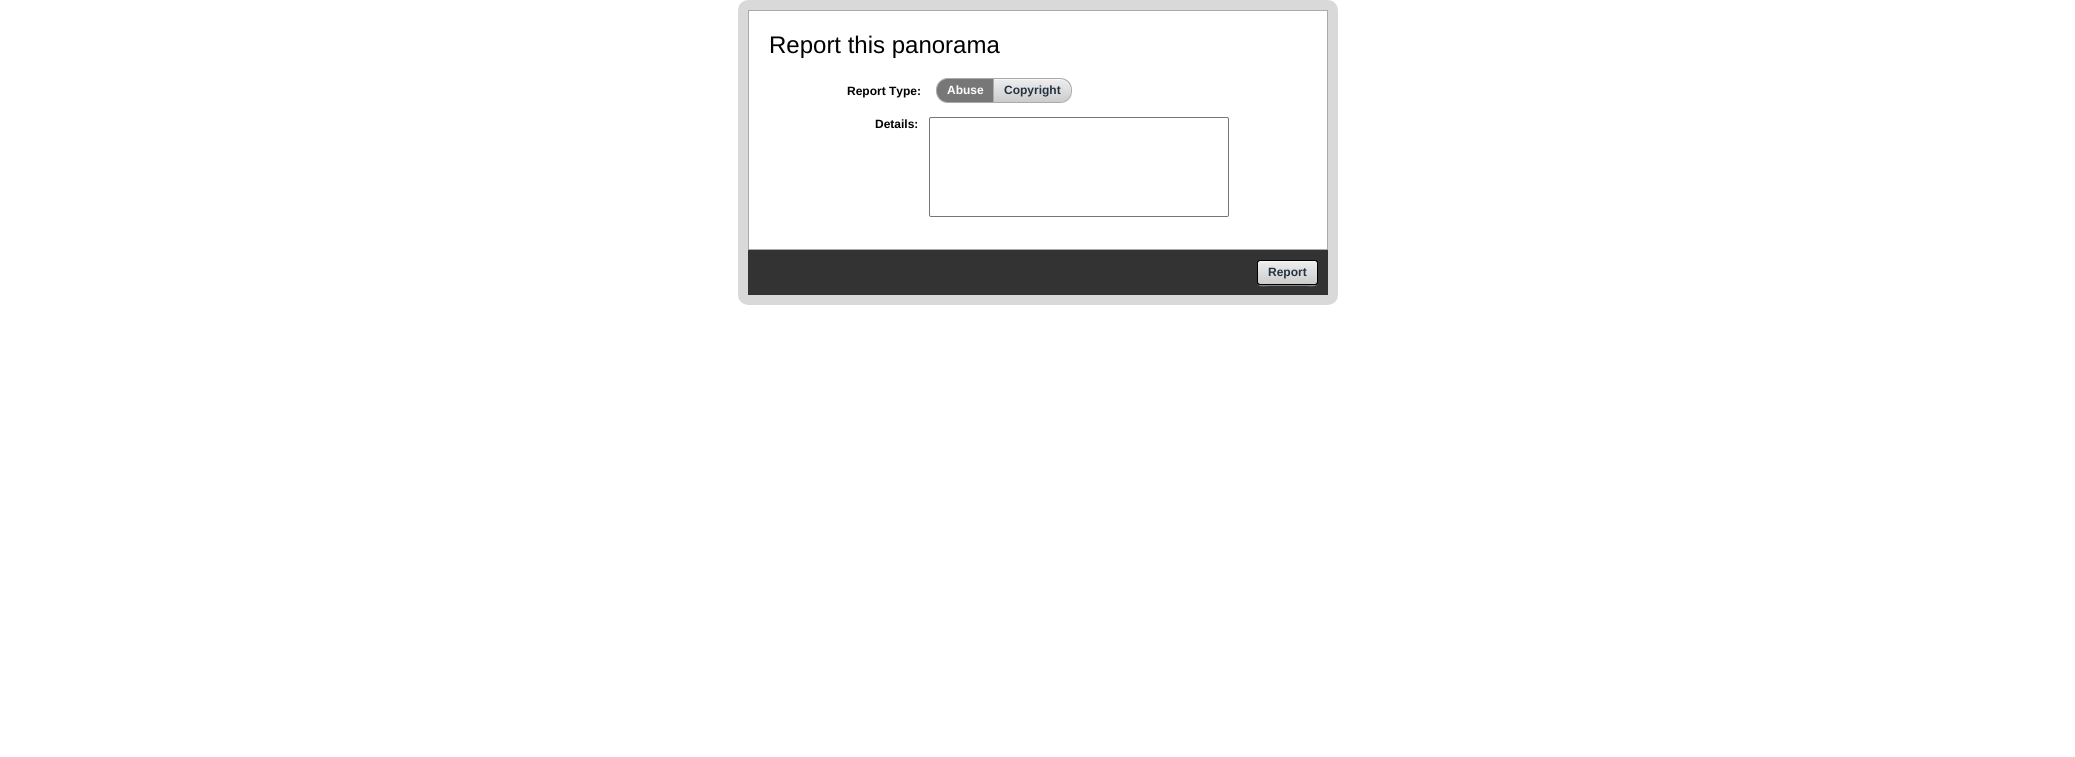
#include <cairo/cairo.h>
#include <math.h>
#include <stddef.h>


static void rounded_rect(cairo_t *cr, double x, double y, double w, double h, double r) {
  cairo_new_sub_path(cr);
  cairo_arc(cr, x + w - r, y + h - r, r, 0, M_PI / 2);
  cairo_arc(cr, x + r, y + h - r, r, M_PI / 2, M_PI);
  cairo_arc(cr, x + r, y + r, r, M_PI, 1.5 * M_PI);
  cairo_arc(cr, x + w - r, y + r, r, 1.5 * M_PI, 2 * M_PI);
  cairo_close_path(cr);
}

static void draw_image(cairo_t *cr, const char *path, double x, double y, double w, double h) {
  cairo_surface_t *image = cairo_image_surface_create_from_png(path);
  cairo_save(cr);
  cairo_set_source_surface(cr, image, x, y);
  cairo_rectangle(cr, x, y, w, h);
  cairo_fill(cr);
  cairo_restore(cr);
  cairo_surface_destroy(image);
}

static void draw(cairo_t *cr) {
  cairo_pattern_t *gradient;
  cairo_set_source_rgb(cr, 1, 1, 1);
  cairo_paint(cr);
  draw_image(cr, "images/1.png", 738, 0, 600, 305);
  cairo_set_source_rgb(cr, 1, 1, 1);
  cairo_rectangle(cr, 748.5, 10.5, 579, 239);
  cairo_fill_preserve(cr);
  cairo_set_source_rgb(cr, 170 / 255.0, 170 / 255.0, 170 / 255.0);
  cairo_set_line_width(cr, 1);
  cairo_stroke(cr);
  cairo_set_source_rgb(cr, 119 / 255.0, 119 / 255.0, 119 / 255.0);
  cairo_new_path(cr);
  cairo_move_to(cr, 948, 78.5);
  cairo_line_to(cr, 993.5, 78.5);
  cairo_line_to(cr, 993.5, 102.5);
  cairo_line_to(cr, 948, 102.5);
  cairo_curve_to(cr, 941.5, 102.5, 936.5, 97.5, 936.5, 91);
  cairo_line_to(cr, 936.5, 90);
  cairo_curve_to(cr, 936.5, 83.5, 941.5, 78.5, 948, 78.5);
  cairo_close_path(cr);
  cairo_fill_preserve(cr);
  cairo_set_source_rgb(cr, 170 / 255.0, 170 / 255.0, 170 / 255.0);
  cairo_stroke(cr);
  gradient = cairo_pattern_create_linear(994, 79, 994, 102);
  cairo_pattern_add_color_stop_rgba(gradient, 0, 238 / 255.0, 238 / 255.0, 238 / 255.0, 1);
  cairo_pattern_add_color_stop_rgba(gradient, 1, 204 / 255.0, 204 / 255.0, 204 / 255.0, 1);
  cairo_set_source(cr, gradient);
  cairo_pattern_destroy(gradient);
  cairo_new_path(cr);
  cairo_move_to(cr, 994, 79);
  cairo_line_to(cr, 1060, 79);
  cairo_curve_to(cr, 1066, 79, 1071, 84, 1071, 90);
  cairo_line_to(cr, 1071, 91);
  cairo_curve_to(cr, 1071, 97, 1066, 102, 1060, 102);
  cairo_line_to(cr, 994, 102);
  cairo_close_path(cr);
  cairo_fill(cr);
  cairo_set_source_rgba(cr, 1, 1, 1, 0.5);
  cairo_new_path(cr);
  cairo_move_to(cr, 994, 80);
  cairo_line_to(cr, 1060, 80);
  cairo_curve_to(cr, 1066, 80, 1071, 85, 1071, 91);
  cairo_line_to(cr, 1071, 90);
  cairo_curve_to(cr, 1071, 84, 1066, 79, 1060, 79);
  cairo_line_to(cr, 994, 79);
  cairo_close_path(cr);
  cairo_fill(cr);
  cairo_set_source_rgb(cr, 170 / 255.0, 170 / 255.0, 170 / 255.0);
  cairo_set_fill_rule(cr, CAIRO_FILL_RULE_EVEN_ODD);
  cairo_new_path(cr);
  cairo_move_to(cr, 994, 78);
  cairo_line_to(cr, 1060, 78);
  cairo_curve_to(cr, 1067, 78, 1072, 83, 1072, 90);
  cairo_line_to(cr, 1072, 91);
  cairo_curve_to(cr, 1072, 98, 1067, 103, 1060, 103);
  cairo_line_to(cr, 994, 103);
  cairo_close_path(cr);
  cairo_move_to(cr, 994, 79);
  cairo_line_to(cr, 1060, 79);
  cairo_curve_to(cr, 1066, 79, 1071, 84, 1071, 90);
  cairo_line_to(cr, 1071, 91);
  cairo_curve_to(cr, 1071, 97, 1066, 102, 1060, 102);
  cairo_line_to(cr, 994, 102);
  cairo_close_path(cr);
  cairo_fill(cr);
  rounded_rect(cr, 929.5, 117.5, 299, 99, 1.5);
  cairo_set_source_rgb(cr, 118 / 255.0, 118 / 255.0, 118 / 255.0);
  cairo_stroke(cr);
  cairo_set_source_rgb(cr, 51 / 255.0, 51 / 255.0, 51 / 255.0);
  cairo_rectangle(cr, 748, 250, 580, 45);
  cairo_fill(cr);
  cairo_set_source_rgb(cr, 133 / 255.0, 133 / 255.0, 133 / 255.0);
  cairo_set_fill_rule(cr, CAIRO_FILL_RULE_WINDING);
  cairo_new_path(cr);
  cairo_move_to(cr, 1257, 282);
  cairo_curve_to(cr, 1257, 288, 1265, 286, 1269, 286);
  cairo_line_to(cr, 1306, 286);
  cairo_curve_to(cr, 1310, 286, 1318, 288, 1318, 282);
  cairo_curve_to(cr, 1318, 284, 1317, 285, 1315, 285);
  cairo_line_to(cr, 1260, 285);
  cairo_curve_to(cr, 1258, 285, 1257, 284, 1257, 282);
  cairo_close_path(cr);
  cairo_fill(cr);
  gradient = cairo_pattern_create_linear(1258, 261, 1258, 284);
  cairo_pattern_add_color_stop_rgba(gradient, 0, 238 / 255.0, 238 / 255.0, 238 / 255.0, 1);
  cairo_pattern_add_color_stop_rgba(gradient, 1, 204 / 255.0, 204 / 255.0, 204 / 255.0, 1);
  cairo_set_source(cr, gradient);
  cairo_pattern_destroy(gradient);
  rounded_rect(cr, 1258, 261, 59, 23, 2);
  cairo_fill(cr);
  cairo_set_source_rgba(cr, 1, 1, 1, 0.5);
  cairo_new_path(cr);
  cairo_move_to(cr, 1260, 262);
  cairo_line_to(cr, 1315, 262);
  cairo_curve_to(cr, 1316, 262, 1317, 263, 1317, 264);
  cairo_curve_to(cr, 1317, 259, 1310, 261, 1306, 261);
  cairo_line_to(cr, 1269, 261);
  cairo_curve_to(cr, 1265, 261, 1258, 259, 1258, 264);
  cairo_curve_to(cr, 1258, 263, 1259, 262, 1260, 262);
  cairo_close_path(cr);
  cairo_fill(cr);
  rounded_rect(cr, 1257.5, 260.5, 60, 24, 2.5);
  cairo_set_source_rgb(cr, 0, 0, 0);
  cairo_stroke(cr);
  cairo_select_font_face(cr, "Liberation Sans", CAIRO_FONT_SLANT_NORMAL, CAIRO_FONT_WEIGHT_NORMAL);
  cairo_set_font_size(cr, 24);
  cairo_move_to(cr, 769, 53);
  cairo_show_text(cr, "Report this panorama");
  cairo_select_font_face(cr, "Liberation Sans", CAIRO_FONT_SLANT_NORMAL, CAIRO_FONT_WEIGHT_BOLD);
  cairo_set_font_size(cr, 12);
  cairo_move_to(cr, 847, 95);
  cairo_show_text(cr, "Report Type:");
  cairo_set_source_rgb(cr, 1, 1, 1);
  cairo_move_to(cr, 947, 94);
  cairo_show_text(cr, "Abuse");
  cairo_set_source_rgb(cr, 36 / 255.0, 51 / 255.0, 66 / 255.0);
  cairo_move_to(cr, 1004, 94);
  cairo_show_text(cr, "Copyright");
  cairo_set_source_rgb(cr, 0, 0, 0);
  cairo_move_to(cr, 875, 128);
  cairo_show_text(cr, "Details:");
  cairo_set_source_rgb(cr, 36 / 255.0, 51 / 255.0, 66 / 255.0);
  cairo_move_to(cr, 1268, 276);
  cairo_show_text(cr, "Report");
}

int main(void) {
  cairo_surface_t *surface = cairo_image_surface_create(CAIRO_FORMAT_RGB24, 2075, 757);
  cairo_t *cr = cairo_create(surface);
  cairo_font_options_t *options = cairo_font_options_create();
  cairo_font_options_set_hint_metrics(options, CAIRO_HINT_METRICS_OFF);
  cairo_font_options_set_hint_style(options, CAIRO_HINT_STYLE_NONE);
  cairo_set_font_options(cr, options);
  cairo_set_miter_limit(cr, 4);
  draw(cr);
  cairo_surface_write_to_png(surface, "out.png");
  cairo_font_options_destroy(options);
  cairo_destroy(cr);
  cairo_surface_destroy(surface);
  return 0;
}
